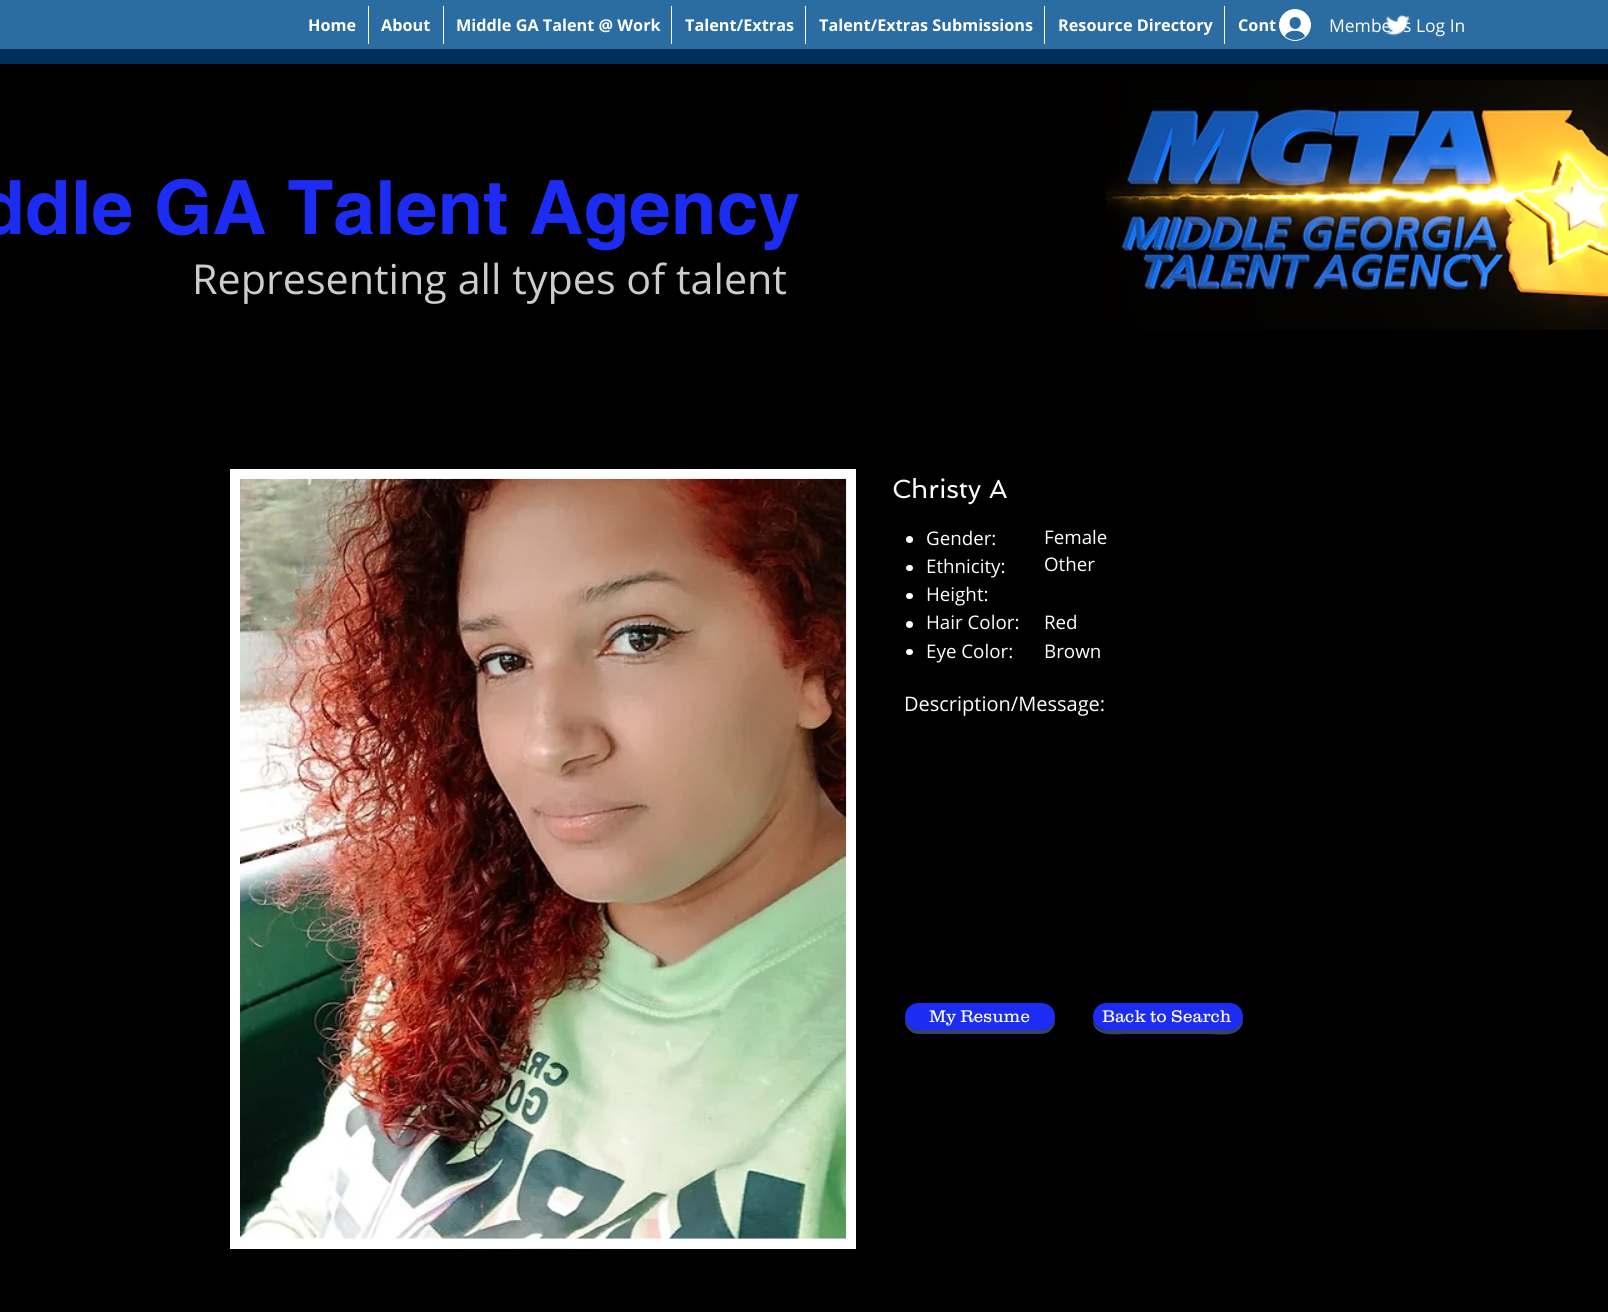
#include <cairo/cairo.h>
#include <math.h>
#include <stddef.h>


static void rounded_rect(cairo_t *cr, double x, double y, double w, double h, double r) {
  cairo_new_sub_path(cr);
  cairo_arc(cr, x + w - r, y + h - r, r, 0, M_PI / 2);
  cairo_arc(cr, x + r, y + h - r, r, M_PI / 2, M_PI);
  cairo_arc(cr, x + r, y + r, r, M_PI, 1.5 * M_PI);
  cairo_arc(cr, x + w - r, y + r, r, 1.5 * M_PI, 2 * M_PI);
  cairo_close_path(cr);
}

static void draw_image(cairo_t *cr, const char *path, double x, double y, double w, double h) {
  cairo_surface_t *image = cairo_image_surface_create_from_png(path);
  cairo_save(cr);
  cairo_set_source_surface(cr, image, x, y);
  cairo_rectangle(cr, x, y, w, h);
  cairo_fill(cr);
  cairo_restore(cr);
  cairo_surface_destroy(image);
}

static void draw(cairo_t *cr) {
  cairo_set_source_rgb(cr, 0, 0, 0);
  cairo_paint(cr);
  cairo_set_source_rgb(cr, 43 / 255.0, 108 / 255.0, 163 / 255.0);
  cairo_rectangle(cr, 0, 0, 1608, 49);
  cairo_fill(cr);
  cairo_set_source_rgb(cr, 0, 46 / 255.0, 93 / 255.0);
  cairo_rectangle(cr, 0, 49, 1608, 15);
  cairo_fill(cr);
  cairo_set_source_rgb(cr, 1, 1, 1);
  cairo_rectangle(cr, 368, 6, 1, 38);
  cairo_fill(cr);
  cairo_rectangle(cr, 443, 6, 1, 38);
  cairo_fill(cr);
  cairo_rectangle(cr, 671, 6, 1, 38);
  cairo_fill(cr);
  cairo_rectangle(cr, 805, 6, 1, 38);
  cairo_fill(cr);
  cairo_rectangle(cr, 1044, 6, 1, 38);
  cairo_fill(cr);
  cairo_rectangle(cr, 1224, 6, 1, 38);
  cairo_fill(cr);
  draw_image(cr, "images/1.png", 1386, 15, 24, 21);
  draw_image(cr, "images/2.png", 1105, 80, 503, 250);
  draw_image(cr, "images/3.png", 1279, 9, 32, 32);
  cairo_rectangle(cr, 230, 469, 626, 780);
  cairo_fill(cr);
  draw_image(cr, "images/4.png", 240, 478, 607, 761);
  draw_image(cr, "images/5.png", 457, 1248, 171, 1);
  cairo_arc(cr, 909.5, 539.5, 3.5, 0, 2 * M_PI);
  cairo_fill(cr);
  rounded_rect(cr, 906, 565, 7, 6, 3);
  cairo_fill(cr);
  rounded_rect(cr, 906, 593, 7, 6, 3);
  cairo_fill(cr);
  cairo_arc(cr, 909.5, 624.5, 3.5, 0, 2 * M_PI);
  cairo_fill(cr);
  rounded_rect(cr, 906, 649, 7, 6, 3);
  cairo_fill(cr);
  cairo_set_source_rgb(cr, 52 / 255.0, 67 / 255.0, 110 / 255.0);
  cairo_new_path(cr);
  cairo_move_to(cr, 905, 1018);
  cairo_line_to(cr, 905, 1020);
  cairo_curve_to(cr, 905, 1028, 911, 1034, 919, 1034);
  cairo_line_to(cr, 1041, 1034);
  cairo_curve_to(cr, 1049, 1034, 1055, 1028, 1055, 1020);
  cairo_line_to(cr, 1055, 1018);
  cairo_curve_to(cr, 1054, 1025, 1048, 1030, 1041, 1030);
  cairo_line_to(cr, 919, 1030);
  cairo_curve_to(cr, 912, 1030, 906, 1025, 905, 1018);
  cairo_close_path(cr);
  cairo_fill(cr);
  cairo_set_source_rgb(cr, 29 / 255.0, 44 / 255.0, 243 / 255.0);
  rounded_rect(cr, 905, 1003, 150, 27, 13.5);
  cairo_fill(cr);
  cairo_set_source_rgb(cr, 52 / 255.0, 67 / 255.0, 110 / 255.0);
  cairo_new_path(cr);
  cairo_move_to(cr, 1093, 1020);
  cairo_curve_to(cr, 1093, 1038, 1116, 1034, 1127, 1034);
  cairo_line_to(cr, 1209, 1034);
  cairo_curve_to(cr, 1218, 1034, 1237, 1038, 1242, 1025);
  cairo_curve_to(cr, 1243, 1023, 1243, 1019, 1242, 1016);
  cairo_curve_to(cr, 1242, 1024, 1236, 1030, 1229, 1030);
  cairo_line_to(cr, 1106, 1030);
  cairo_curve_to(cr, 1100, 1030, 1095, 1026, 1093, 1020);
  cairo_close_path(cr);
  cairo_fill(cr);
  cairo_set_source_rgb(cr, 29 / 255.0, 44 / 255.0, 243 / 255.0);
  rounded_rect(cr, 1093, 1003, 150, 27, 13.5);
  cairo_fill(cr);
  cairo_select_font_face(cr, "Open Sans", CAIRO_FONT_SLANT_NORMAL, CAIRO_FONT_WEIGHT_BOLD);
  cairo_set_font_size(cr, 16.25);
  cairo_set_source_rgb(cr, 1, 1, 1);
  cairo_move_to(cr, 308, 31);
  cairo_show_text(cr, "Home");
  cairo_move_to(cr, 381, 31);
  cairo_show_text(cr, "About");
  cairo_move_to(cr, 456, 31);
  cairo_show_text(cr, "Middle GA Talent @ Work");
  cairo_move_to(cr, 685, 31);
  cairo_show_text(cr, "Talent/Extras");
  cairo_move_to(cr, 819, 31);
  cairo_show_text(cr, "Talent/Extras Submissions");
  cairo_move_to(cr, 1058, 31);
  cairo_show_text(cr, "Resource Directory");
  cairo_move_to(cr, 1238, 31);
  cairo_show_text(cr, "Cont");
  cairo_select_font_face(cr, "helvetica", CAIRO_FONT_SLANT_NORMAL, CAIRO_FONT_WEIGHT_BOLD);
  cairo_set_font_size(cr, 75);
  cairo_set_source_rgb(cr, 29 / 255.0, 44 / 255.0, 243 / 255.0);
  cairo_move_to(cr, -21, 234);
  cairo_show_text(cr, "ddle GA Talent Agency");
  cairo_select_font_face(cr, "Open Sans", CAIRO_FONT_SLANT_NORMAL, CAIRO_FONT_WEIGHT_NORMAL);
  cairo_set_font_size(cr, 41.25);
  cairo_set_source_rgb(cr, 205 / 255.0, 205 / 255.0, 205 / 255.0);
  cairo_move_to(cr, 192, 294);
  cairo_show_text(cr, "Representing all types of talent");
  cairo_set_font_size(cr, 17.5);
  cairo_set_source_rgb(cr, 1, 1, 1);
  cairo_move_to(cr, 1329, 32);
  cairo_show_text(cr, "Membe");
  cairo_move_to(cr, 1403, 32);
  cairo_show_text(cr, "s Log In");
  cairo_select_font_face(cr, "Spinnaker", CAIRO_FONT_SLANT_NORMAL, CAIRO_FONT_WEIGHT_NORMAL);
  cairo_set_font_size(cr, 26.25);
  cairo_move_to(cr, 892, 498);
  cairo_show_text(cr, "Christy A");
  cairo_select_font_face(cr, "Open Sans", CAIRO_FONT_SLANT_NORMAL, CAIRO_FONT_WEIGHT_NORMAL);
  cairo_set_font_size(cr, 18.75);
  cairo_move_to(cr, 926, 545);
  cairo_show_text(cr, "Gender:");
  cairo_move_to(cr, 926, 573);
  cairo_show_text(cr, "Ethnicity:");
  cairo_move_to(cr, 926, 601);
  cairo_show_text(cr, "Height:");
  cairo_move_to(cr, 926, 629);
  cairo_show_text(cr, "Hair Color:");
  cairo_move_to(cr, 926, 658);
  cairo_show_text(cr, "Eye Color:");
  cairo_move_to(cr, 1044, 544);
  cairo_show_text(cr, "Female");
  cairo_move_to(cr, 1044, 571);
  cairo_show_text(cr, "Other");
  cairo_move_to(cr, 1044, 629);
  cairo_show_text(cr, "Red");
  cairo_move_to(cr, 1044, 658);
  cairo_show_text(cr, "Brown");
  cairo_set_font_size(cr, 20);
  cairo_move_to(cr, 904, 711);
  cairo_show_text(cr, "Description/Message:");
  cairo_select_font_face(cr, "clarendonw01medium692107 Light", CAIRO_FONT_SLANT_NORMAL, CAIRO_FONT_WEIGHT_NORMAL);
  cairo_set_font_size(cr, 17.5);
  cairo_move_to(cr, 929, 1022);
  cairo_show_text(cr, "My Resume");
  cairo_move_to(cr, 1102, 1022);
  cairo_show_text(cr, "Back to Search");
}

int main(void) {
  cairo_surface_t *surface = cairo_image_surface_create(CAIRO_FORMAT_RGB24, 1608, 1312);
  cairo_t *cr = cairo_create(surface);
  cairo_font_options_t *options = cairo_font_options_create();
  cairo_font_options_set_hint_metrics(options, CAIRO_HINT_METRICS_OFF);
  cairo_font_options_set_hint_style(options, CAIRO_HINT_STYLE_NONE);
  cairo_set_font_options(cr, options);
  cairo_set_miter_limit(cr, 4);
  draw(cr);
  cairo_surface_write_to_png(surface, "out.png");
  cairo_font_options_destroy(options);
  cairo_destroy(cr);
  cairo_surface_destroy(surface);
  return 0;
}
